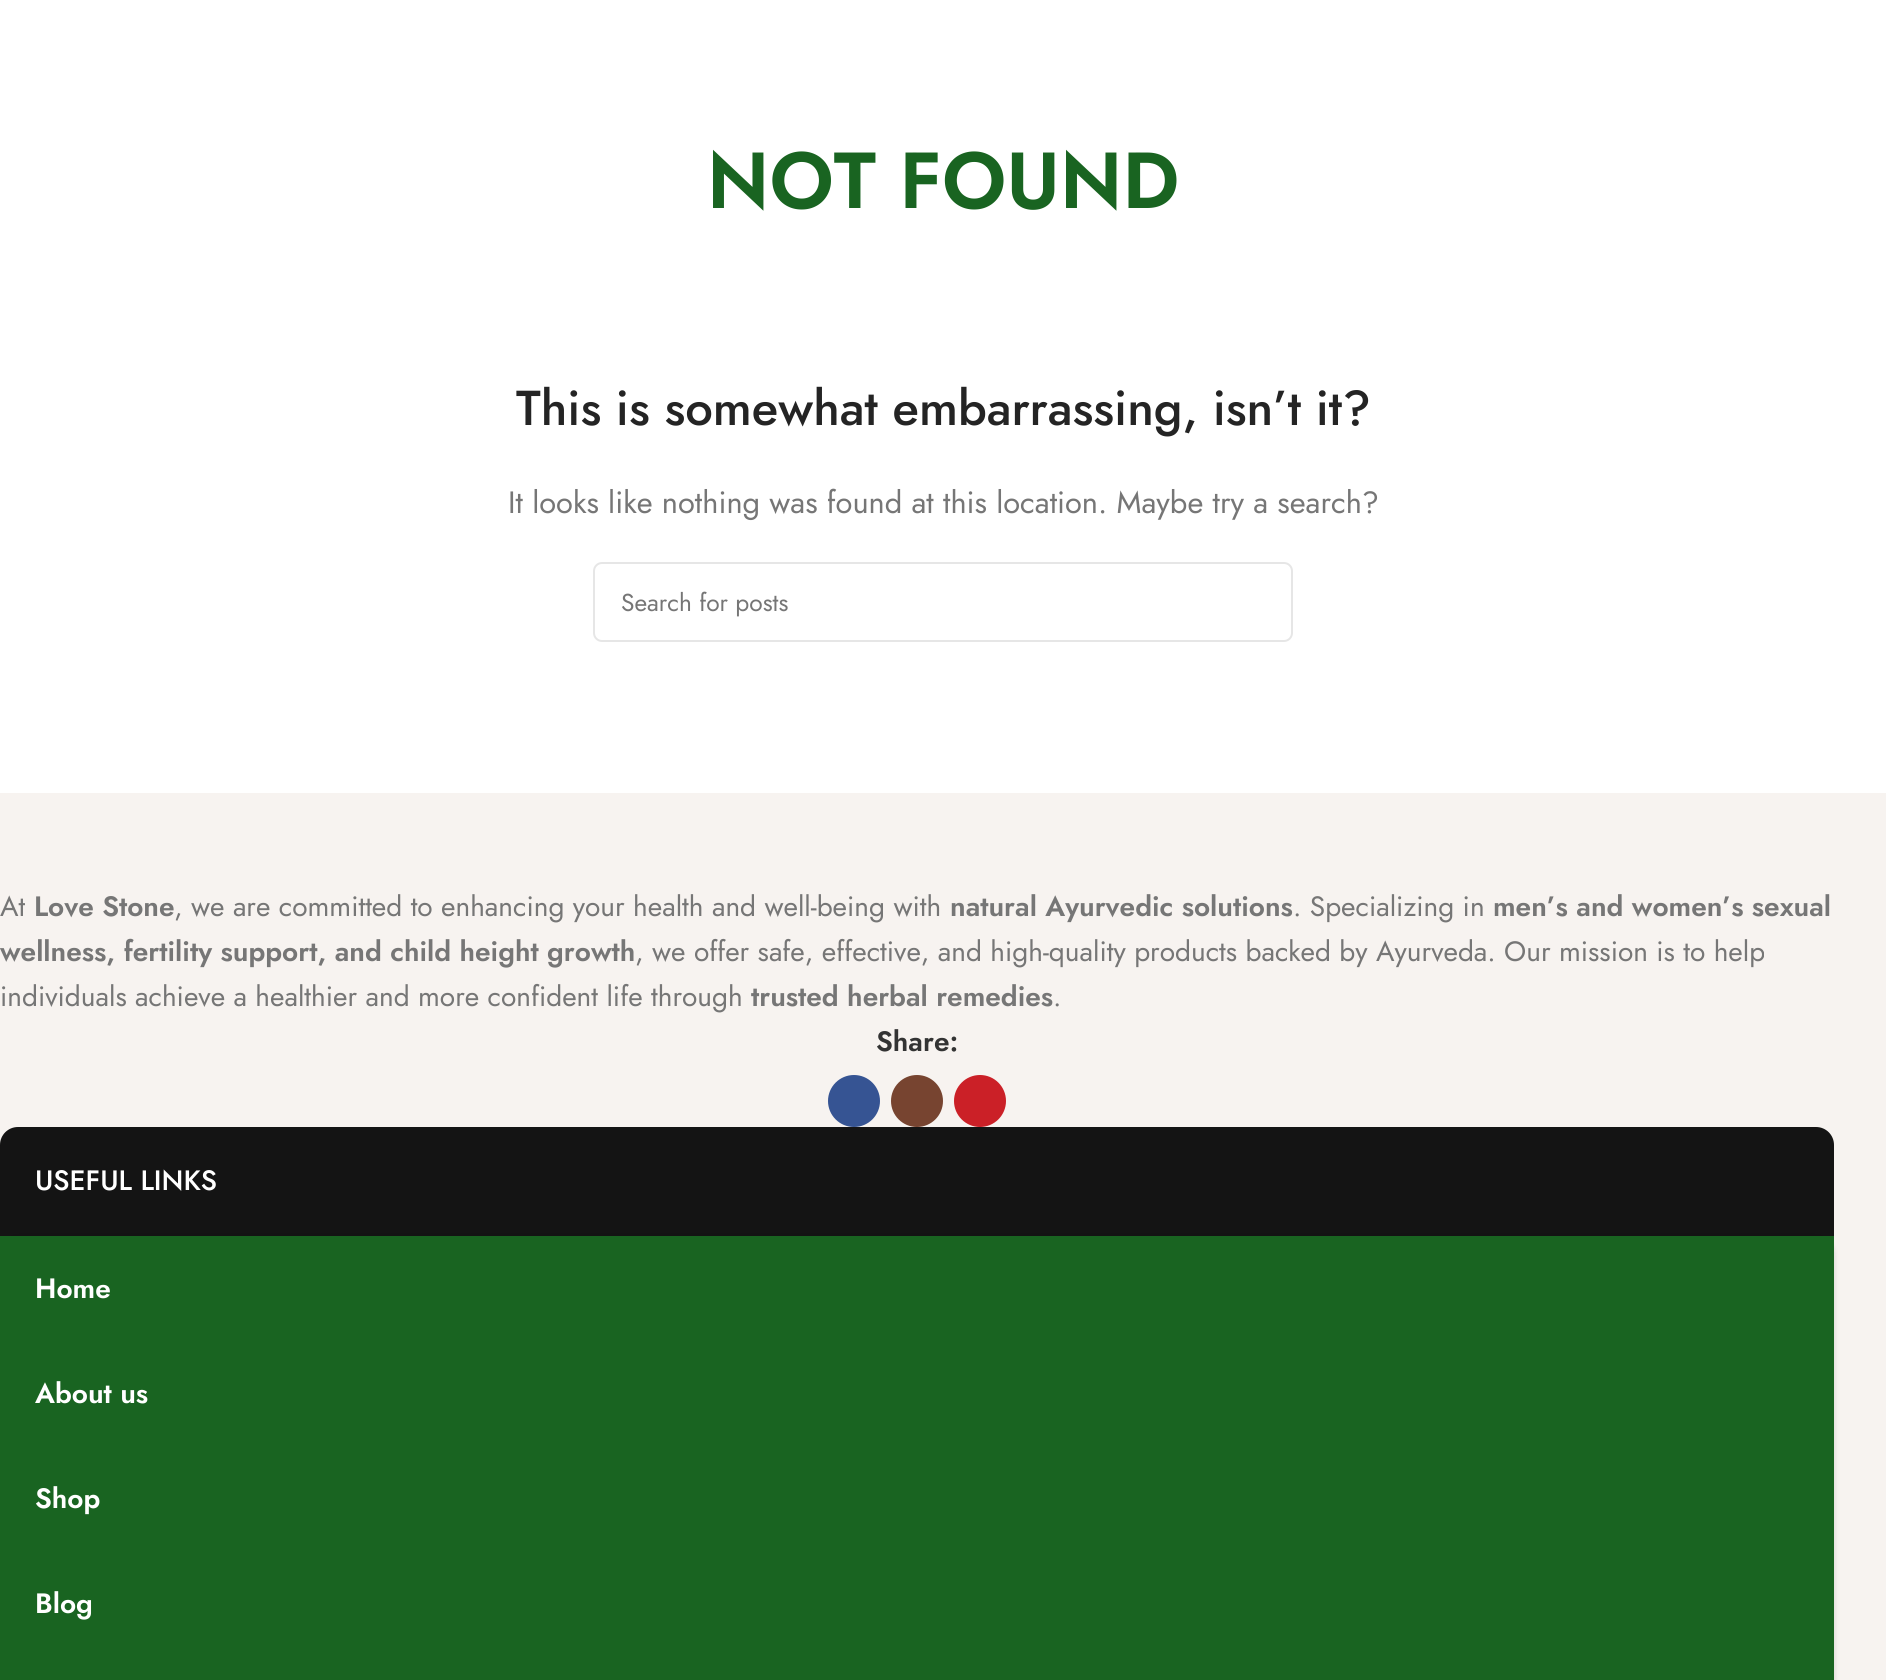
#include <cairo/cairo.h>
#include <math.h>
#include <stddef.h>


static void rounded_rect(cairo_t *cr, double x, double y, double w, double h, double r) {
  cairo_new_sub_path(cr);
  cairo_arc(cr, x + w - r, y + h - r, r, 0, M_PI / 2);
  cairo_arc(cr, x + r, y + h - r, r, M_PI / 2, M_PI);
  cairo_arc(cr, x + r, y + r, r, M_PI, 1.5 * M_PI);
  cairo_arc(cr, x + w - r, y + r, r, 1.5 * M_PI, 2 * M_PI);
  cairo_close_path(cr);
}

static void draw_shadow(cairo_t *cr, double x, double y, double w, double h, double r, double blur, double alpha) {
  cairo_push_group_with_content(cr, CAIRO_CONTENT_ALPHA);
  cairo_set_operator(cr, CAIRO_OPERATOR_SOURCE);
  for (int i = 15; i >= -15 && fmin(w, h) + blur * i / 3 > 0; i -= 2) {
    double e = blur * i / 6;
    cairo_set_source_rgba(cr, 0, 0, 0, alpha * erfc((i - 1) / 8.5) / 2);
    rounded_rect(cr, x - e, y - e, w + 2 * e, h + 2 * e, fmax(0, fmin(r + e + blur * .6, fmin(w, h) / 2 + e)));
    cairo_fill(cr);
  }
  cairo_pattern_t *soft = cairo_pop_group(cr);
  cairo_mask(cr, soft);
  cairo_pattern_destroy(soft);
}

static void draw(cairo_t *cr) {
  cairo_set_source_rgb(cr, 1, 1, 1);
  cairo_paint(cr);
  rounded_rect(cr, 594, 563, 698, 78, 8);
  cairo_set_source_rgb(cr, 230 / 255.0, 230 / 255.0, 230 / 255.0);
  cairo_stroke(cr);
  cairo_set_source_rgb(cr, 247 / 255.0, 243 / 255.0, 240 / 255.0);
  cairo_rectangle(cr, 0, 793, 1886, 887);
  cairo_fill(cr);
  cairo_set_source_rgb(cr, 54 / 255.0, 84 / 255.0, 147 / 255.0);
  cairo_arc(cr, 854, 1101, 26, 0, 2 * M_PI);
  cairo_fill(cr);
  cairo_set_source_rgb(cr, 119 / 255.0, 68 / 255.0, 48 / 255.0);
  cairo_arc(cr, 917, 1101, 26, 0, 2 * M_PI);
  cairo_fill(cr);
  cairo_set_source_rgb(cr, 203 / 255.0, 32 / 255.0, 39 / 255.0);
  cairo_arc(cr, 980, 1101, 26, 0, 2 * M_PI);
  cairo_fill(cr);
  cairo_set_source_rgb(cr, 20 / 255.0, 20 / 255.0, 20 / 255.0);
  cairo_new_path(cr);
  cairo_move_to(cr, 18, 1127);
  cairo_line_to(cr, 1816, 1127);
  cairo_curve_to(cr, 1826, 1127, 1834, 1135, 1834, 1145);
  cairo_line_to(cr, 1834, 1236);
  cairo_line_to(cr, 0, 1236);
  cairo_line_to(cr, 0, 1145);
  cairo_curve_to(cr, 0, 1135, 8, 1127, 18, 1127);
  cairo_close_path(cr);
  cairo_fill(cr);
  cairo_set_source_rgb(cr, 0, 0, 0);
  draw_shadow(cr, 0, 1236, 1834, 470, 18, 2.5, 0.15);
  cairo_set_source_rgb(cr, 25 / 255.0, 100 / 255.0, 33 / 255.0);
  cairo_rectangle(cr, 0, 1236, 1834, 444);
  cairo_fill(cr);
  cairo_select_font_face(cr, "Jost SemiBold", CAIRO_FONT_SLANT_NORMAL, CAIRO_FONT_WEIGHT_NORMAL);
  cairo_set_font_size(cr, 79.25);
  cairo_move_to(cr, 707, 208);
  cairo_show_text(cr, "NOT FOUND");
  cairo_select_font_face(cr, "Jost Medium", CAIRO_FONT_SLANT_NORMAL, CAIRO_FONT_WEIGHT_NORMAL);
  cairo_set_font_size(cr, 49);
  cairo_set_source_rgb(cr, 36 / 255.0, 36 / 255.0, 36 / 255.0);
  cairo_move_to(cr, 516, 425);
  cairo_show_text(cr, "This is somewhat embarrassing, isn’t it?");
  cairo_select_font_face(cr, "Jost", CAIRO_FONT_SLANT_NORMAL, CAIRO_FONT_WEIGHT_NORMAL);
  cairo_set_font_size(cr, 30.8);
  cairo_set_source_rgb(cr, 118 / 255.0, 118 / 255.0, 118 / 255.0);
  cairo_move_to(cr, 508, 513);
  cairo_show_text(cr, "It looks like nothing was found at this location. Maybe try a search?");
  cairo_set_font_size(cr, 24.5);
  cairo_move_to(cr, 621, 611);
  cairo_show_text(cr, "Search for posts");
  cairo_set_font_size(cr, 28);
  cairo_move_to(cr, 0, 916);
  cairo_show_text(cr, "At");
  cairo_select_font_face(cr, "Jost SemiBold", CAIRO_FONT_SLANT_NORMAL, CAIRO_FONT_WEIGHT_NORMAL);
  cairo_move_to(cr, 34, 916);
  cairo_show_text(cr, "Love Stone");
  cairo_select_font_face(cr, "Jost", CAIRO_FONT_SLANT_NORMAL, CAIRO_FONT_WEIGHT_NORMAL);
  cairo_move_to(cr, 174, 916);
  cairo_show_text(cr, ", we are committed to enhancing your health and well-being with");
  cairo_select_font_face(cr, "Jost SemiBold", CAIRO_FONT_SLANT_NORMAL, CAIRO_FONT_WEIGHT_NORMAL);
  cairo_move_to(cr, 950, 916);
  cairo_show_text(cr, "natural Ayurvedic solutions");
  cairo_select_font_face(cr, "Jost", CAIRO_FONT_SLANT_NORMAL, CAIRO_FONT_WEIGHT_NORMAL);
  cairo_move_to(cr, 1293, 916);
  cairo_show_text(cr, ". Specializing in");
  cairo_select_font_face(cr, "Jost SemiBold", CAIRO_FONT_SLANT_NORMAL, CAIRO_FONT_WEIGHT_NORMAL);
  cairo_move_to(cr, 1493, 916);
  cairo_show_text(cr, "men’s and women’s sexual");
  cairo_move_to(cr, 0, 961);
  cairo_show_text(cr, "wellness, fertility support, and child height growth");
  cairo_select_font_face(cr, "Jost", CAIRO_FONT_SLANT_NORMAL, CAIRO_FONT_WEIGHT_NORMAL);
  cairo_move_to(cr, 635, 961);
  cairo_show_text(cr, ", we offer safe, effective, and high-quality products backed by Ayurveda. Our mission is to help");
  cairo_move_to(cr, 0, 1006);
  cairo_show_text(cr, "individuals achieve a healthier and more confident life through");
  cairo_select_font_face(cr, "Jost SemiBold", CAIRO_FONT_SLANT_NORMAL, CAIRO_FONT_WEIGHT_NORMAL);
  cairo_move_to(cr, 751, 1006);
  cairo_show_text(cr, "trusted herbal remedies");
  cairo_select_font_face(cr, "Jost", CAIRO_FONT_SLANT_NORMAL, CAIRO_FONT_WEIGHT_NORMAL);
  cairo_move_to(cr, 1053, 1006);
  cairo_show_text(cr, ".");
  cairo_select_font_face(cr, "Jost SemiBold", CAIRO_FONT_SLANT_NORMAL, CAIRO_FONT_WEIGHT_NORMAL);
  cairo_set_source_rgb(cr, 51 / 255.0, 51 / 255.0, 51 / 255.0);
  cairo_move_to(cr, 876, 1051);
  cairo_show_text(cr, "Share:");
  cairo_select_font_face(cr, "Jost Medium", CAIRO_FONT_SLANT_NORMAL, CAIRO_FONT_WEIGHT_NORMAL);
  cairo_set_source_rgb(cr, 1, 1, 1);
  cairo_move_to(cr, 35, 1190);
  cairo_show_text(cr, "USEFUL LINKS");
  cairo_select_font_face(cr, "Jost SemiBold", CAIRO_FONT_SLANT_NORMAL, CAIRO_FONT_WEIGHT_NORMAL);
  cairo_move_to(cr, 35, 1298);
  cairo_show_text(cr, "Home");
  cairo_move_to(cr, 35, 1403);
  cairo_show_text(cr, "About us");
  cairo_move_to(cr, 35, 1508);
  cairo_show_text(cr, "Shop");
  cairo_move_to(cr, 35, 1613);
  cairo_show_text(cr, "Blog");
}

int main(void) {
  cairo_surface_t *surface = cairo_image_surface_create(CAIRO_FORMAT_RGB24, 1886, 1680);
  cairo_t *cr = cairo_create(surface);
  cairo_font_options_t *options = cairo_font_options_create();
  cairo_font_options_set_hint_metrics(options, CAIRO_HINT_METRICS_OFF);
  cairo_font_options_set_hint_style(options, CAIRO_HINT_STYLE_NONE);
  cairo_set_font_options(cr, options);
  cairo_set_miter_limit(cr, 4);
  draw(cr);
  cairo_surface_write_to_png(surface, "out.png");
  cairo_font_options_destroy(options);
  cairo_destroy(cr);
  cairo_surface_destroy(surface);
  return 0;
}
